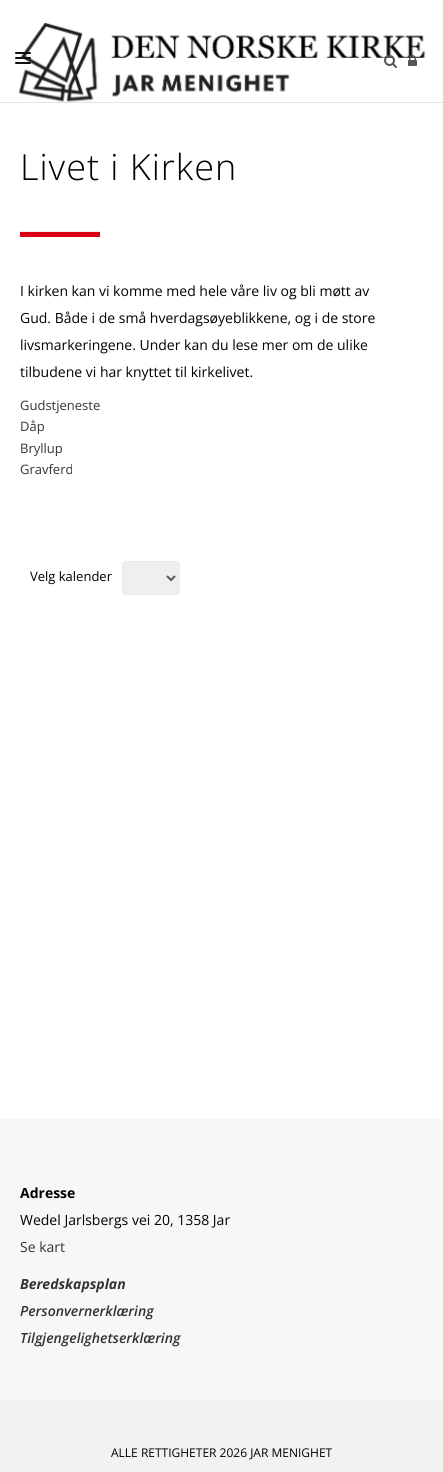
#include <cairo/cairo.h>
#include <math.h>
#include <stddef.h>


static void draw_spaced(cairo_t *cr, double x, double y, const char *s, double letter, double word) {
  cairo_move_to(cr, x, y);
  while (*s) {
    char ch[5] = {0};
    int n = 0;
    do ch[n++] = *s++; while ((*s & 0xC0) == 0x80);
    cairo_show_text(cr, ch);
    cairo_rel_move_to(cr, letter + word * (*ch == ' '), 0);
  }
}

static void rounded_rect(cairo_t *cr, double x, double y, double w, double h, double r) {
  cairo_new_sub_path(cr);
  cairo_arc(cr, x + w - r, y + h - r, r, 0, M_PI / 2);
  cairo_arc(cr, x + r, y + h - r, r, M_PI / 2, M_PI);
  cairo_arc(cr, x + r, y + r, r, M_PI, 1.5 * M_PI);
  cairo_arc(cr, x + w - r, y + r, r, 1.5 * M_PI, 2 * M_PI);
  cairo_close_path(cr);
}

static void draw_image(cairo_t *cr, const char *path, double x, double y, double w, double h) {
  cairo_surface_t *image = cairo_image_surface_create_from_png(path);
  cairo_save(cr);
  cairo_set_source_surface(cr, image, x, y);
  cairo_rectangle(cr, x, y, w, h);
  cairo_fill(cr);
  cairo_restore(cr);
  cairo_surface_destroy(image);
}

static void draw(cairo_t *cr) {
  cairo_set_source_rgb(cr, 1, 1, 1);
  cairo_paint(cr);
  cairo_set_source_rgb(cr, 227 / 255.0, 227 / 255.0, 227 / 255.0);
  cairo_rectangle(cr, 0, 102, 443, 1);
  cairo_fill(cr);
  draw_image(cr, "images/1.png", 18, 22, 408, 80);
  cairo_set_source_rgb(cr, 17 / 255.0, 17 / 255.0, 17 / 255.0);
  rounded_rect(cr, 15, 57, 16, 2, 1);
  cairo_fill(cr);
  rounded_rect(cr, 15, 52, 16, 2, 1);
  cairo_fill(cr);
  rounded_rect(cr, 15, 62, 16, 2, 1);
  cairo_fill(cr);
  draw_image(cr, "images/2.png", 384, 55, 13, 13);
  draw_image(cr, "images/3.png", 408, 55, 9, 11);
  cairo_set_source_rgb(cr, 238 / 255.0, 238 / 255.0, 238 / 255.0);
  cairo_rectangle(cr, 20, 231, 80, 1);
  cairo_fill(cr);
  cairo_set_source_rgb(cr, 217 / 255.0, 0, 17 / 255.0);
  cairo_rectangle(cr, 20, 232, 80, 5);
  cairo_fill(cr);
  cairo_set_source_rgb(cr, 239 / 255.0, 239 / 255.0, 239 / 255.0);
  rounded_rect(cr, 122.5, 561.5, 57, 33, 3.5);
  cairo_fill_preserve(cr);
  cairo_set_source_rgb(cr, 235 / 255.0, 235 / 255.0, 235 / 255.0);
  cairo_set_line_width(cr, 1);
  cairo_stroke(cr);
  cairo_new_path(cr);
  cairo_move_to(cr, 167, 576);
  cairo_line_to(cr, 171, 580);
  cairo_line_to(cr, 175, 576);
  cairo_set_source_rgb(cr, 86 / 255.0, 86 / 255.0, 86 / 255.0);
  cairo_set_line_width(cr, 2);
  cairo_stroke(cr);
  cairo_set_source_rgb(cr, 247 / 255.0, 247 / 255.0, 247 / 255.0);
  cairo_rectangle(cr, 0, 1119, 443, 282);
  cairo_fill(cr);
  cairo_set_source_rgb(cr, 242 / 255.0, 242 / 255.0, 242 / 255.0);
  cairo_rectangle(cr, 0, 1402, 443, 70);
  cairo_fill(cr);
  cairo_set_source_rgb(cr, 237 / 255.0, 237 / 255.0, 237 / 255.0);
  cairo_rectangle(cr, 0, 1401, 443, 1);
  cairo_fill(cr);
  cairo_select_font_face(cr, "Open Sans Light", CAIRO_FONT_SLANT_NORMAL, CAIRO_FONT_WEIGHT_NORMAL);
  cairo_set_font_size(cr, 36);
  cairo_set_source_rgb(cr, 0, 0, 0);
  draw_spaced(cr, 20, 180, "Livet i Kirken", 1, 0);
  cairo_select_font_face(cr, "Open Sans", CAIRO_FONT_SLANT_NORMAL, CAIRO_FONT_WEIGHT_NORMAL);
  cairo_set_font_size(cr, 14);
  cairo_move_to(cr, 20, 296);
  cairo_show_text(cr, "I kirken kan vi komme med hele våre liv og bli møtt av");
  cairo_move_to(cr, 20, 323);
  cairo_show_text(cr, "Gud. Både i de små hverdagsøyeblikkene, og i de store");
  cairo_move_to(cr, 20, 350);
  cairo_show_text(cr, "livsmarkeringene. Under kan du lese mer om de ulike");
  cairo_move_to(cr, 20, 377);
  cairo_show_text(cr, "tilbudene vi har knyttet til kirkelivet.");
  cairo_set_font_size(cr, 13);
  cairo_set_source_rgb(cr, 51 / 255.0, 51 / 255.0, 51 / 255.0);
  cairo_move_to(cr, 20, 410);
  cairo_show_text(cr, "Gudstjeneste");
  cairo_move_to(cr, 20, 431);
  cairo_show_text(cr, "Dåp");
  cairo_move_to(cr, 20, 453);
  cairo_show_text(cr, "Bryllup");
  cairo_move_to(cr, 20, 474);
  cairo_show_text(cr, "Gravferd");
  cairo_set_source_rgb(cr, 0, 0, 0);
  cairo_move_to(cr, 30, 581);
  cairo_show_text(cr, "Velg kalender");
  cairo_select_font_face(cr, "Open Sans", CAIRO_FONT_SLANT_NORMAL, CAIRO_FONT_WEIGHT_BOLD);
  cairo_set_font_size(cr, 14);
  cairo_move_to(cr, 20, 1198);
  cairo_show_text(cr, "Adresse");
  cairo_select_font_face(cr, "Open Sans", CAIRO_FONT_SLANT_NORMAL, CAIRO_FONT_WEIGHT_NORMAL);
  cairo_move_to(cr, 20, 1225);
  cairo_show_text(cr, "Wedel Jarlsbergs vei 20, 1358 Jar");
  cairo_set_source_rgb(cr, 51 / 255.0, 51 / 255.0, 51 / 255.0);
  cairo_move_to(cr, 20, 1252);
  cairo_show_text(cr, "Se kart");
  cairo_select_font_face(cr, "Open Sans", CAIRO_FONT_SLANT_ITALIC, CAIRO_FONT_WEIGHT_BOLD);
  cairo_move_to(cr, 20, 1289);
  cairo_show_text(cr, "Beredskapsplan");
  cairo_select_font_face(cr, "Open Sans SemiBold", CAIRO_FONT_SLANT_ITALIC, CAIRO_FONT_WEIGHT_NORMAL);
  cairo_move_to(cr, 20, 1316);
  cairo_show_text(cr, "Personvernerklæring");
  cairo_move_to(cr, 20, 1343);
  cairo_show_text(cr, "Tilgjengelighetserklæring");
  cairo_select_font_face(cr, "Open Sans", CAIRO_FONT_SLANT_NORMAL, CAIRO_FONT_WEIGHT_NORMAL);
  cairo_set_font_size(cr, 12);
  cairo_set_source_rgb(cr, 0, 0, 0);
  cairo_move_to(cr, 111, 1457);
  cairo_show_text(cr, "ALLE RETTIGHETER 2026 JAR MENIGHET");
}

int main(void) {
  cairo_surface_t *surface = cairo_image_surface_create(CAIRO_FORMAT_RGB24, 443, 1472);
  cairo_t *cr = cairo_create(surface);
  cairo_font_options_t *options = cairo_font_options_create();
  cairo_font_options_set_hint_metrics(options, CAIRO_HINT_METRICS_OFF);
  cairo_font_options_set_hint_style(options, CAIRO_HINT_STYLE_NONE);
  cairo_set_font_options(cr, options);
  cairo_set_miter_limit(cr, 4);
  draw(cr);
  cairo_surface_write_to_png(surface, "out.png");
  cairo_font_options_destroy(options);
  cairo_destroy(cr);
  cairo_surface_destroy(surface);
  return 0;
}
